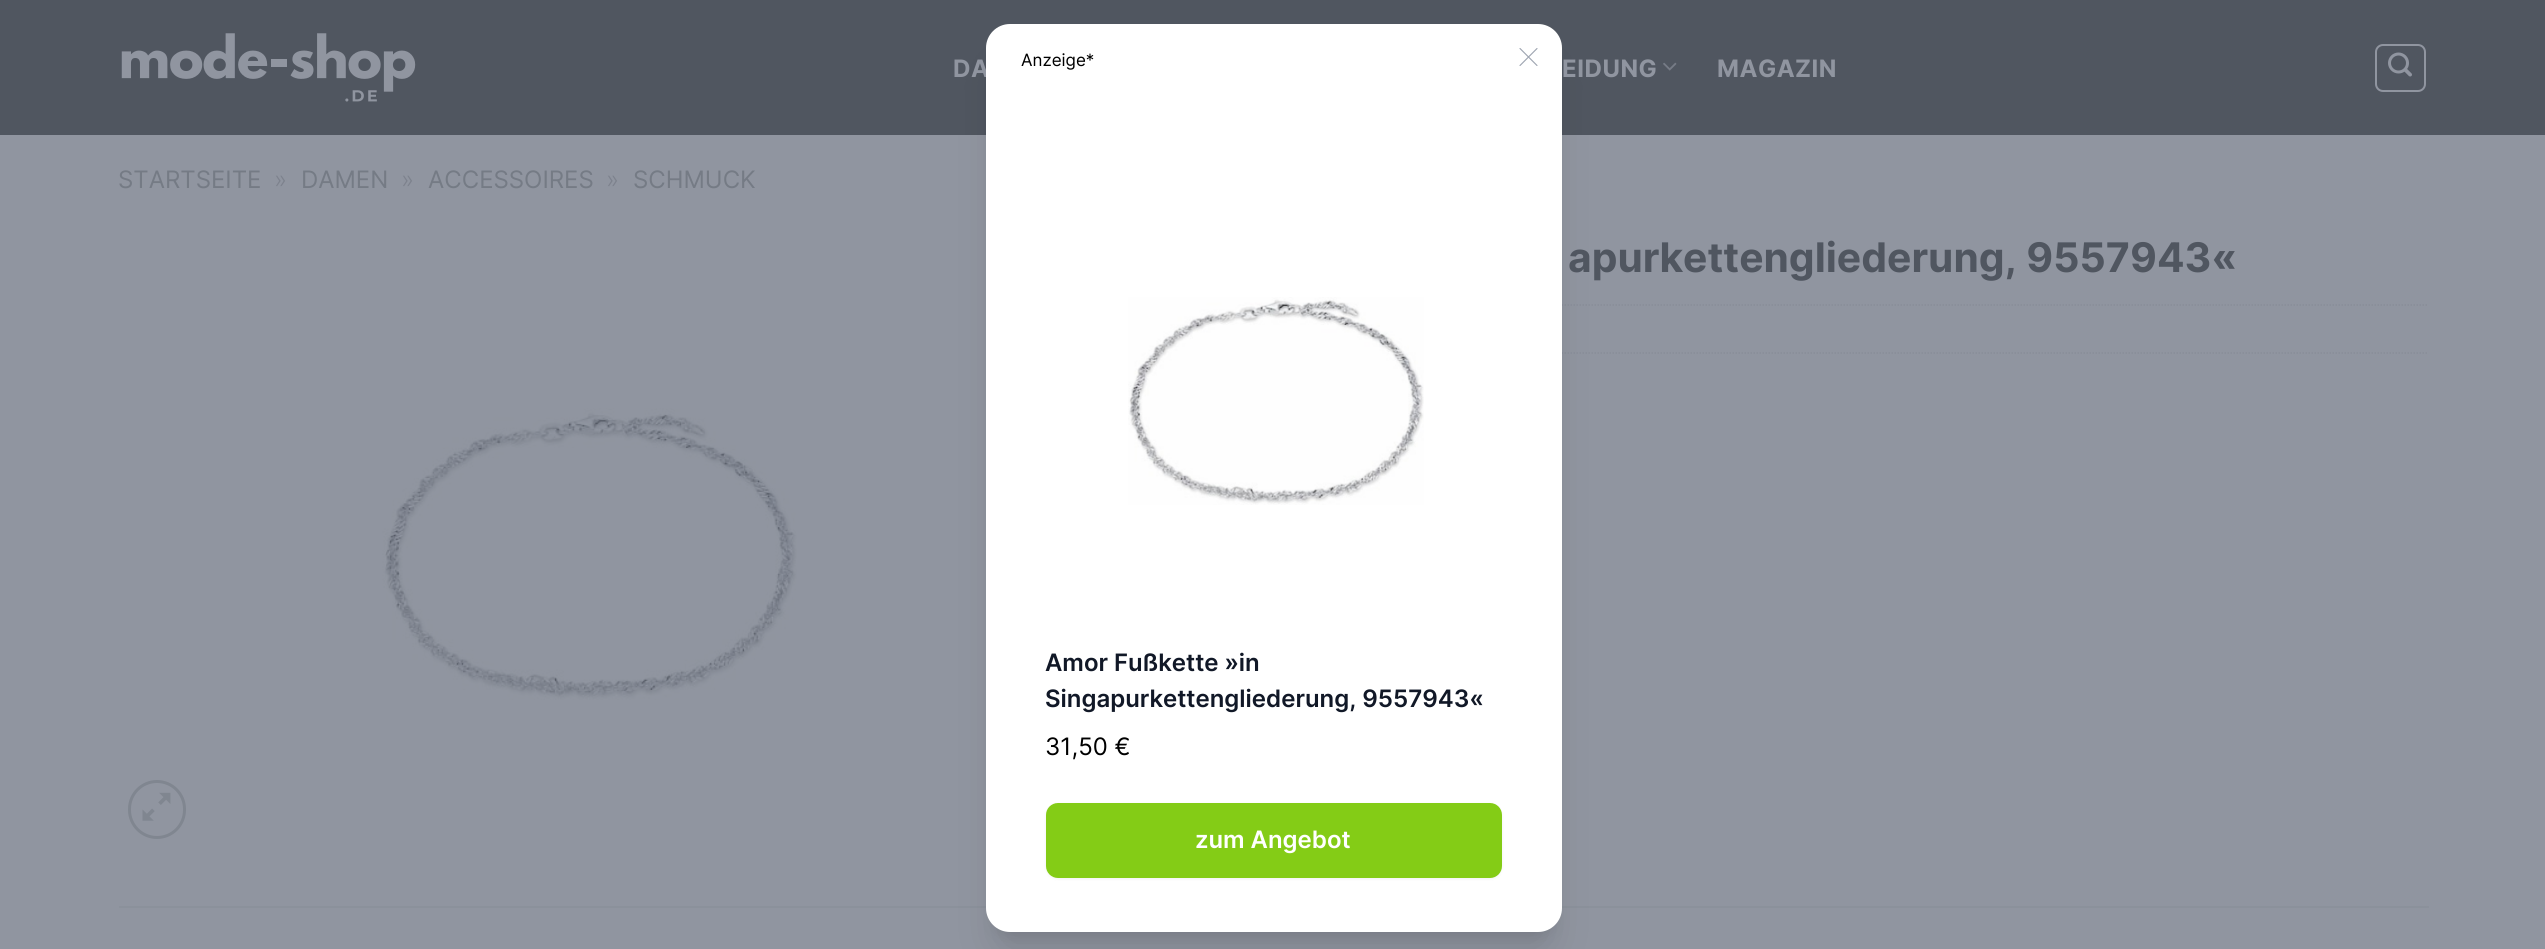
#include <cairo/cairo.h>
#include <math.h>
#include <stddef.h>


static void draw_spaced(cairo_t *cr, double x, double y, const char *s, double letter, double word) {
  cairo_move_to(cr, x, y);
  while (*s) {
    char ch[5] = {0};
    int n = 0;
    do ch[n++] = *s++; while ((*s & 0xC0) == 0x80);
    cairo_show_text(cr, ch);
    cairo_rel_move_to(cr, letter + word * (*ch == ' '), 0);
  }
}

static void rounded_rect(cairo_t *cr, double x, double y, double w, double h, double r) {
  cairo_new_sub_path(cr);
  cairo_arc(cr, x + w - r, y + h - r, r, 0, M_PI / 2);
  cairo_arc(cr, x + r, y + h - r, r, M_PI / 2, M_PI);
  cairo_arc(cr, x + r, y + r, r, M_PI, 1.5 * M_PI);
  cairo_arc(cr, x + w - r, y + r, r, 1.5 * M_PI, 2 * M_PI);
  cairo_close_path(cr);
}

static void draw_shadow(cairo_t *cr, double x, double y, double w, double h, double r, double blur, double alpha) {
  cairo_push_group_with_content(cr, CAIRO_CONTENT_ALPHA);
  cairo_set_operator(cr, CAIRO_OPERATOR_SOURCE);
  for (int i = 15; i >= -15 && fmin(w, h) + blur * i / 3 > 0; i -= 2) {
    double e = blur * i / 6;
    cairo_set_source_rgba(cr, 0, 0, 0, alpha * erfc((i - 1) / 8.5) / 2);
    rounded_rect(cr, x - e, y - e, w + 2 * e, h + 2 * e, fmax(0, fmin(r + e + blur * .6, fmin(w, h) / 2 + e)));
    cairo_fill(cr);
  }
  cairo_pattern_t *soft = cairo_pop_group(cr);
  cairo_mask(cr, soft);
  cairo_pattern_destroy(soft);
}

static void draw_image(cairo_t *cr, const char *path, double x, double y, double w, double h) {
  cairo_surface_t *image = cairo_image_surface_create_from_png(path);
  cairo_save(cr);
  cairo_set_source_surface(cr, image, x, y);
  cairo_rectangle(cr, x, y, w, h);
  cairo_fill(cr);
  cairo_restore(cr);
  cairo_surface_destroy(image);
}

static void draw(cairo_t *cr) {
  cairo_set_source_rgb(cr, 144 / 255.0, 149 / 255.0, 160 / 255.0);
  cairo_paint(cr);
  cairo_set_source_rgb(cr, 80 / 255.0, 86 / 255.0, 96 / 255.0);
  cairo_rectangle(cr, 0, 0, 2545, 135);
  cairo_fill(cr);
  cairo_new_path(cr);
  cairo_move_to(cr, 1099.5, 305);
  cairo_line_to(cr, 2428.5, 305);
  cairo_set_source_rgb(cr, 136 / 255.0, 141 / 255.0, 151 / 255.0);
  cairo_set_line_width(cr, 1.5);
  cairo_set_dash(cr, (double[]){1.5, 1.5}, 2, 0);
  cairo_stroke(cr);
  cairo_new_path(cr);
  cairo_move_to(cr, 1099.5, 353);
  cairo_line_to(cr, 2428.5, 353);
  cairo_stroke(cr);
  cairo_set_source_rgb(cr, 139 / 255.0, 145 / 255.0, 155 / 255.0);
  cairo_rectangle(cr, 119, 906, 2310, 2);
  cairo_fill(cr);
  cairo_set_source_rgb(cr, 0, 0, 0);
  draw_shadow(cr, 995, 45, 558, 890, 15, 7.5, 0.1);
  draw_shadow(cr, 993, 62, 561, 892, 17, 19, 0.1);
  draw_image(cr, "images/2.png", 121, 33, 295, 69);
  draw_image(cr, "images/3.png", 1663, 62, 14, 9);
  rounded_rect(cr, 2376, 45, 49, 46, 7);
  cairo_set_source_rgb(cr, 144 / 255.0, 149 / 255.0, 160 / 255.0);
  cairo_set_line_width(cr, 2);
  cairo_set_dash(cr, NULL, 0, 0);
  cairo_stroke(cr);
  draw_image(cr, "images/4.png", 2388, 52, 24, 25);
  draw_image(cr, "images/5.png", 382, 408, 415, 292);
  rounded_rect(cr, 129.5, 781.5, 55, 56, 27.5);
  cairo_set_source_rgb(cr, 128 / 255.0, 134 / 255.0, 144 / 255.0);
  cairo_set_line_width(cr, 3);
  cairo_stroke(cr);
  draw_image(cr, "images/6.png", 142, 792, 29, 29);
  cairo_select_font_face(cr, "Inter", CAIRO_FONT_SLANT_NORMAL, CAIRO_FONT_WEIGHT_BOLD);
  cairo_set_font_size(cr, 24);
  cairo_set_source_rgb(cr, 144 / 255.0, 149 / 255.0, 160 / 255.0);
  draw_spaced(cr, 953, 77, "DA", 0.5, 0);
  cairo_set_source_rgb(cr, 1, 1, 1);
  rounded_rect(cr, 986, 24, 576, 908, 24);
  cairo_fill(cr);
  cairo_new_path(cr);
  cairo_move_to(cr, 1520, 65.5);
  cairo_line_to(cr, 1537, 48.5);
  cairo_move_to(cr, 1520, 48.5);
  cairo_line_to(cr, 1537, 65.5);
  cairo_set_source_rgb(cr, 156 / 255.0, 163 / 255.0, 175 / 255.0);
  cairo_set_line_width(cr, 1.1);
  cairo_set_line_cap(cr, CAIRO_LINE_CAP_ROUND);
  cairo_set_line_join(cr, CAIRO_LINE_JOIN_ROUND);
  cairo_stroke(cr);
  cairo_select_font_face(cr, "Inter", CAIRO_FONT_SLANT_NORMAL, CAIRO_FONT_WEIGHT_NORMAL);
  cairo_set_font_size(cr, 17);
  cairo_set_source_rgb(cr, 0, 0, 0);
  cairo_move_to(cr, 1021, 66);
  cairo_show_text(cr, "Anzeige*");
  cairo_set_source_rgb(cr, 0, 0, 0);
  draw_shadow(cr, 1046, 804, 456, 75, 12, 1.5, 0.05);
  cairo_set_source_rgb(cr, 132 / 255.0, 204 / 255.0, 22 / 255.0);
  rounded_rect(cr, 1046, 803, 456, 75, 12);
  cairo_fill(cr);
  cairo_select_font_face(cr, "Inter SemiBold", CAIRO_FONT_SLANT_NORMAL, CAIRO_FONT_WEIGHT_NORMAL);
  cairo_set_font_size(cr, 24);
  cairo_set_source_rgb(cr, 1, 1, 1);
  cairo_move_to(cr, 1195, 848);
  cairo_show_text(cr, "zum Angebot");
  cairo_select_font_face(cr, "Inter", CAIRO_FONT_SLANT_NORMAL, CAIRO_FONT_WEIGHT_NORMAL);
  cairo_set_source_rgb(cr, 0, 0, 0);
  cairo_move_to(cr, 1045, 755);
  cairo_show_text(cr, "31,50 €");
  cairo_select_font_face(cr, "Inter SemiBold", CAIRO_FONT_SLANT_NORMAL, CAIRO_FONT_WEIGHT_NORMAL);
  cairo_set_source_rgb(cr, 17 / 255.0, 24 / 255.0, 39 / 255.0);
  cairo_move_to(cr, 1045, 707);
  cairo_show_text(cr, "Singapurkettengliederung, 9557943«");
  cairo_move_to(cr, 1045, 671);
  cairo_show_text(cr, "Amor Fußkette »in");
  draw_image(cr, "images/1.png", 1128, 297, 296, 208);
  cairo_select_font_face(cr, "Inter", CAIRO_FONT_SLANT_NORMAL, CAIRO_FONT_WEIGHT_BOLD);
  cairo_set_source_rgb(cr, 144 / 255.0, 149 / 255.0, 160 / 255.0);
  draw_spaced(cr, 1562, 77, "EIDUNG", 0.5, 0);
  draw_spaced(cr, 1717, 77, "MAGAZIN", 0.5, 0);
  cairo_select_font_face(cr, "Inter", CAIRO_FONT_SLANT_NORMAL, CAIRO_FONT_WEIGHT_NORMAL);
  cairo_set_source_rgb(cr, 117 / 255.0, 123 / 255.0, 133 / 255.0);
  cairo_move_to(cr, 118, 188);
  cairo_show_text(cr, "STARTSEITE");
  cairo_select_font_face(cr, "Inter Light", CAIRO_FONT_SLANT_NORMAL, CAIRO_FONT_WEIGHT_NORMAL);
  cairo_set_source_rgb(cr, 125 / 255.0, 130 / 255.0, 141 / 255.0);
  cairo_move_to(cr, 274, 188);
  cairo_show_text(cr, "»");
  cairo_select_font_face(cr, "Inter", CAIRO_FONT_SLANT_NORMAL, CAIRO_FONT_WEIGHT_NORMAL);
  cairo_set_source_rgb(cr, 117 / 255.0, 123 / 255.0, 133 / 255.0);
  cairo_move_to(cr, 301, 188);
  cairo_show_text(cr, "DAMEN");
  cairo_select_font_face(cr, "Inter Light", CAIRO_FONT_SLANT_NORMAL, CAIRO_FONT_WEIGHT_NORMAL);
  cairo_set_source_rgb(cr, 125 / 255.0, 130 / 255.0, 141 / 255.0);
  cairo_move_to(cr, 401, 188);
  cairo_show_text(cr, "»");
  cairo_select_font_face(cr, "Inter", CAIRO_FONT_SLANT_NORMAL, CAIRO_FONT_WEIGHT_NORMAL);
  cairo_set_source_rgb(cr, 117 / 255.0, 123 / 255.0, 133 / 255.0);
  cairo_move_to(cr, 428, 188);
  cairo_show_text(cr, "ACCESSOIRES");
  cairo_select_font_face(cr, "Inter Light", CAIRO_FONT_SLANT_NORMAL, CAIRO_FONT_WEIGHT_NORMAL);
  cairo_set_source_rgb(cr, 125 / 255.0, 130 / 255.0, 141 / 255.0);
  cairo_move_to(cr, 606, 188);
  cairo_show_text(cr, "»");
  cairo_select_font_face(cr, "Inter", CAIRO_FONT_SLANT_NORMAL, CAIRO_FONT_WEIGHT_NORMAL);
  cairo_set_source_rgb(cr, 117 / 255.0, 123 / 255.0, 133 / 255.0);
  cairo_move_to(cr, 633, 188);
  cairo_show_text(cr, "SCHMUCK");
  cairo_select_font_face(cr, "Inter", CAIRO_FONT_SLANT_NORMAL, CAIRO_FONT_WEIGHT_BOLD);
  cairo_set_font_size(cr, 40.75);
  cairo_set_source_rgb(cr, 80 / 255.0, 86 / 255.0, 96 / 255.0);
  cairo_move_to(cr, 1568, 272);
  cairo_show_text(cr, "apurkettengliederung, 9557943«");
}

int main(void) {
  cairo_surface_t *surface = cairo_image_surface_create(CAIRO_FORMAT_RGB24, 2545, 949);
  cairo_t *cr = cairo_create(surface);
  cairo_font_options_t *options = cairo_font_options_create();
  cairo_font_options_set_hint_metrics(options, CAIRO_HINT_METRICS_OFF);
  cairo_font_options_set_hint_style(options, CAIRO_HINT_STYLE_NONE);
  cairo_set_font_options(cr, options);
  cairo_set_miter_limit(cr, 4);
  draw(cr);
  cairo_surface_write_to_png(surface, "out.png");
  cairo_font_options_destroy(options);
  cairo_destroy(cr);
  cairo_surface_destroy(surface);
  return 0;
}
